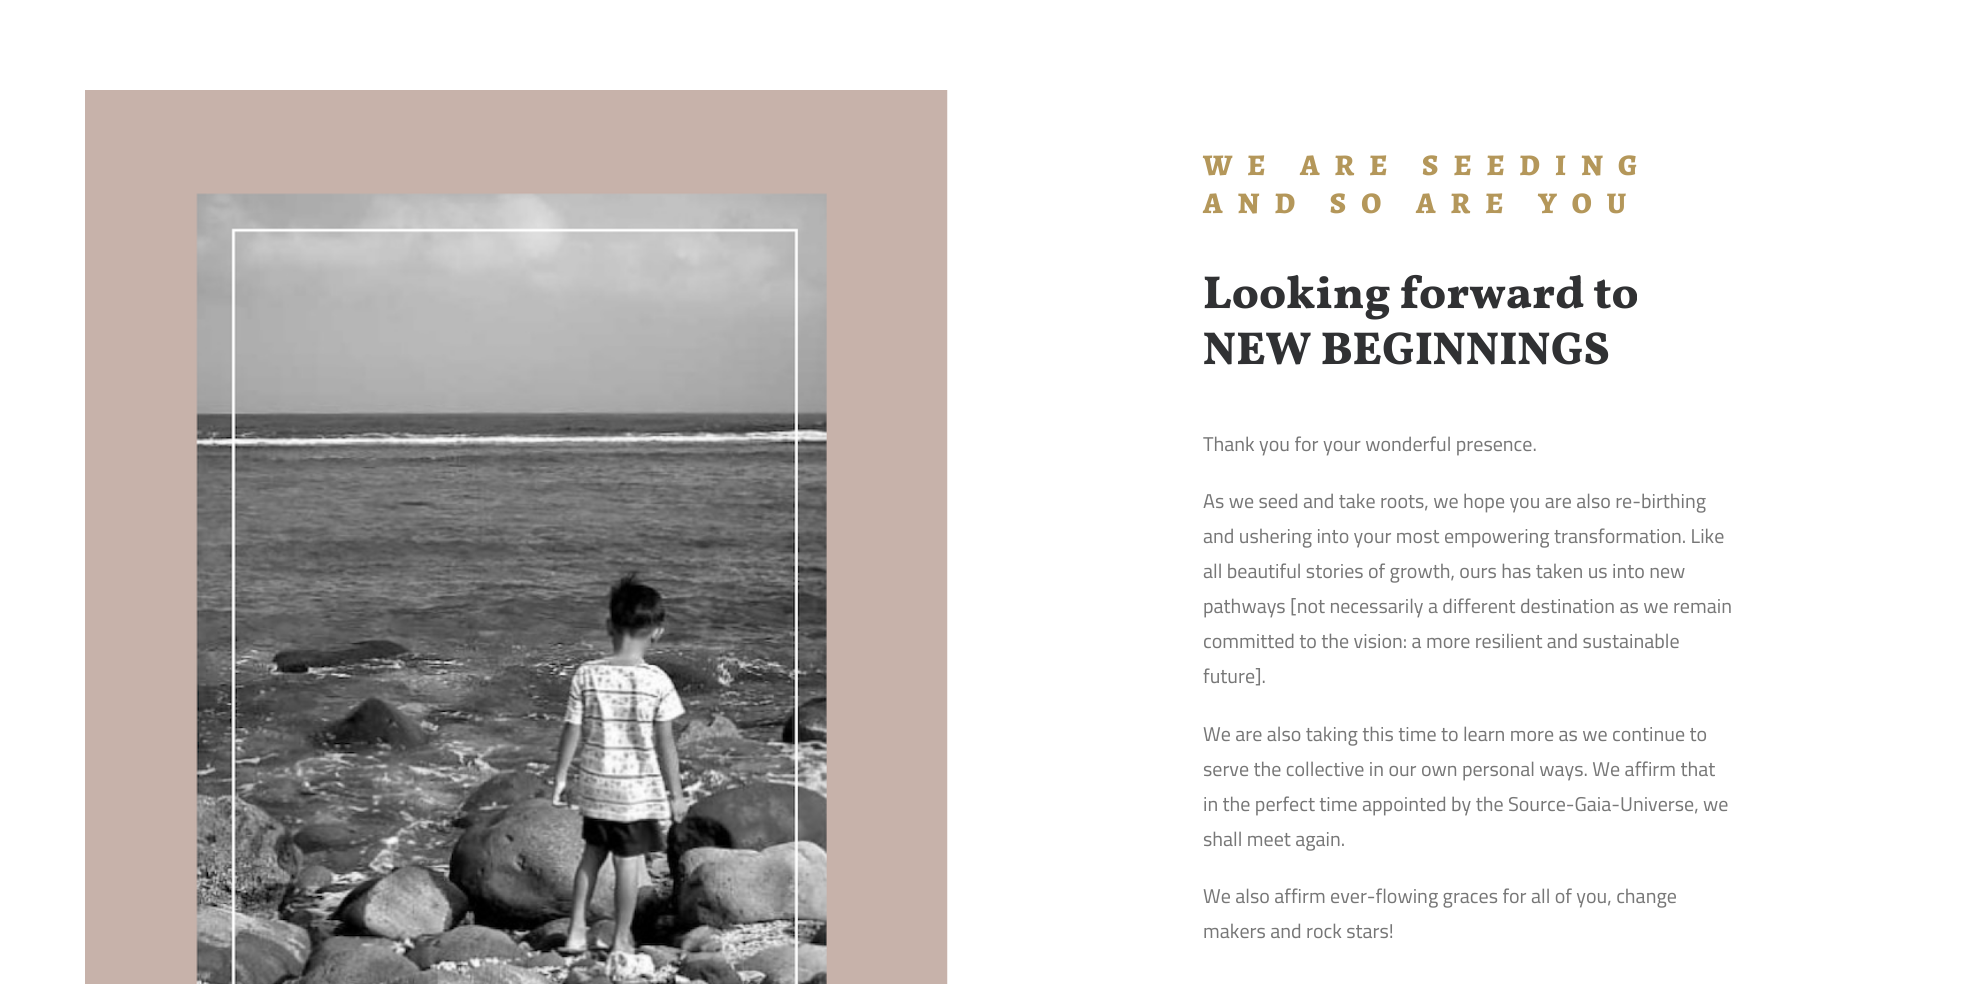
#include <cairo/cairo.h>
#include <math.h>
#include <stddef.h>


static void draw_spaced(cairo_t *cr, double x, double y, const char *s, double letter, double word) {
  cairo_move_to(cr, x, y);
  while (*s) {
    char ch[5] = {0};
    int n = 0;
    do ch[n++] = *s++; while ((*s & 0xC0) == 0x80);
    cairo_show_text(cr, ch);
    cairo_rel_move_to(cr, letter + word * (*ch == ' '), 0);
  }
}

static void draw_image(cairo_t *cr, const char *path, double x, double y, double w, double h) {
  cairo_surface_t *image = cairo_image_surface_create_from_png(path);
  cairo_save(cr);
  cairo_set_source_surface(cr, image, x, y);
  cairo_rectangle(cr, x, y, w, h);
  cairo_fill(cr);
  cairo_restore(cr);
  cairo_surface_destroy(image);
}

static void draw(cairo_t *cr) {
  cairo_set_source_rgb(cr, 1, 1, 1);
  cairo_paint(cr);
  draw_image(cr, "images/1.png", 85, 90, 863, 894);
  cairo_select_font_face(cr, "Alegreya ExtraBold", CAIRO_FONT_SLANT_NORMAL, CAIRO_FONT_WEIGHT_NORMAL);
  cairo_set_font_size(cr, 30);
  cairo_set_source_rgb(cr, 180 / 255.0, 151 / 255.0, 90 / 255.0);
  draw_spaced(cr, 1203, 175, "WE ARE SEEDING", 15, 0);
  draw_spaced(cr, 1203, 213, "AND SO ARE YOU", 15, 0);
  cairo_select_font_face(cr, "Vollkorn ExtraBold", CAIRO_FONT_SLANT_NORMAL, CAIRO_FONT_WEIGHT_NORMAL);
  cairo_set_font_size(cr, 46.25);
  cairo_set_source_rgb(cr, 48 / 255.0, 49 / 255.0, 51 / 255.0);
  cairo_move_to(cr, 1203, 308);
  cairo_show_text(cr, "Looking forward to");
  cairo_move_to(cr, 1203, 364);
  cairo_show_text(cr, "NEW BEGINNINGS");
  cairo_select_font_face(cr, "Cairo", CAIRO_FONT_SLANT_NORMAL, CAIRO_FONT_WEIGHT_NORMAL);
  cairo_set_font_size(cr, 20);
  cairo_set_source_rgb(cr, 119 / 255.0, 119 / 255.0, 119 / 255.0);
  cairo_move_to(cr, 1203, 451);
  cairo_show_text(cr, "Thank you for your wonderful presence.");
  cairo_move_to(cr, 1203, 508);
  cairo_show_text(cr, "As we seed and take roots, we hope you are also re-birthing");
  cairo_move_to(cr, 1203, 543);
  cairo_show_text(cr, "and ushering into your most empowering transformation. Like");
  cairo_move_to(cr, 1203, 578);
  cairo_show_text(cr, "all beautiful stories of growth, ours has taken us into new");
  cairo_move_to(cr, 1203, 613);
  cairo_show_text(cr, "pathways [not necessarily a different destination as we remain");
  cairo_move_to(cr, 1203, 648);
  cairo_show_text(cr, "committed to the vision: a more resilient and sustainable");
  cairo_move_to(cr, 1203, 683);
  cairo_show_text(cr, "future].");
  cairo_move_to(cr, 1203, 741);
  cairo_show_text(cr, "We are also taking this time to learn more as we continue to");
  cairo_move_to(cr, 1203, 776);
  cairo_show_text(cr, "serve the collective in our own personal ways. We affirm that");
  cairo_move_to(cr, 1203, 811);
  cairo_show_text(cr, "in the perfect time appointed by the Source-Gaia-Universe, we");
  cairo_move_to(cr, 1203, 846);
  cairo_show_text(cr, "shall meet again.");
  cairo_move_to(cr, 1203, 903);
  cairo_show_text(cr, "We also affirm ever-flowing graces for all of you, change");
  cairo_move_to(cr, 1203, 938);
  cairo_show_text(cr, "makers and rock stars!");
}

int main(void) {
  cairo_surface_t *surface = cairo_image_surface_create(CAIRO_FORMAT_RGB24, 1985, 984);
  cairo_t *cr = cairo_create(surface);
  cairo_font_options_t *options = cairo_font_options_create();
  cairo_font_options_set_hint_metrics(options, CAIRO_HINT_METRICS_OFF);
  cairo_font_options_set_hint_style(options, CAIRO_HINT_STYLE_NONE);
  cairo_set_font_options(cr, options);
  cairo_set_miter_limit(cr, 4);
  draw(cr);
  cairo_surface_write_to_png(surface, "out.png");
  cairo_font_options_destroy(options);
  cairo_destroy(cr);
  cairo_surface_destroy(surface);
  return 0;
}
